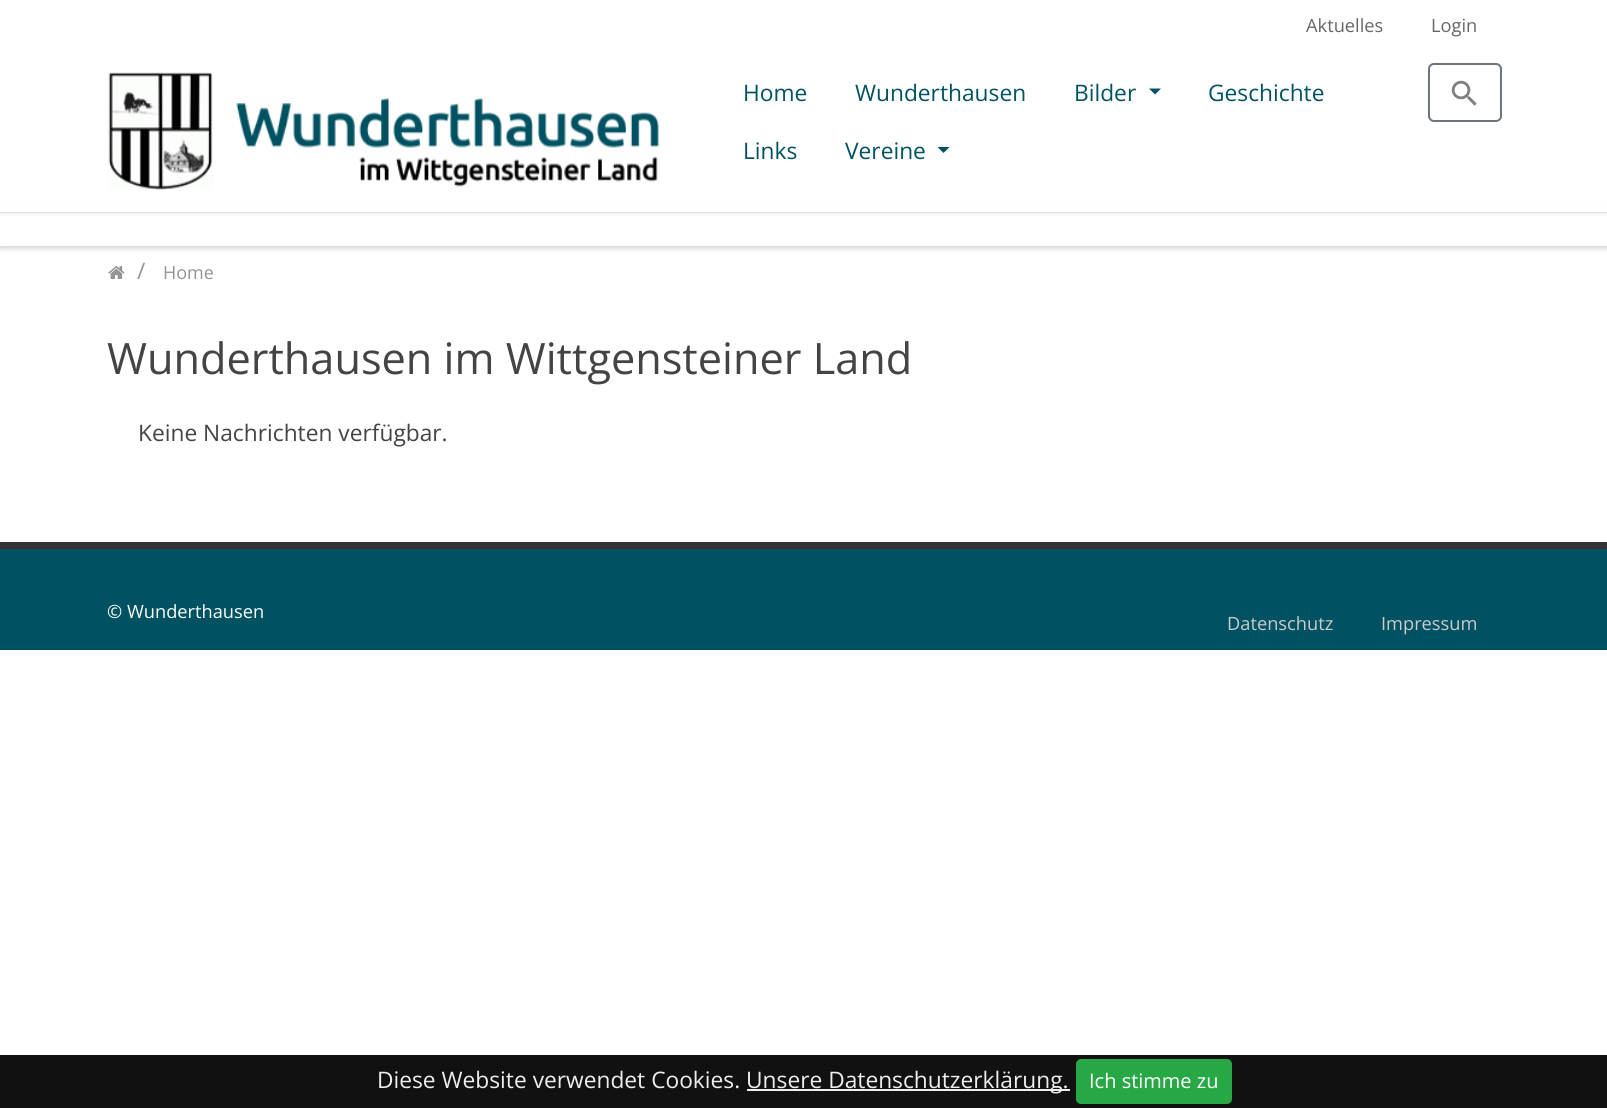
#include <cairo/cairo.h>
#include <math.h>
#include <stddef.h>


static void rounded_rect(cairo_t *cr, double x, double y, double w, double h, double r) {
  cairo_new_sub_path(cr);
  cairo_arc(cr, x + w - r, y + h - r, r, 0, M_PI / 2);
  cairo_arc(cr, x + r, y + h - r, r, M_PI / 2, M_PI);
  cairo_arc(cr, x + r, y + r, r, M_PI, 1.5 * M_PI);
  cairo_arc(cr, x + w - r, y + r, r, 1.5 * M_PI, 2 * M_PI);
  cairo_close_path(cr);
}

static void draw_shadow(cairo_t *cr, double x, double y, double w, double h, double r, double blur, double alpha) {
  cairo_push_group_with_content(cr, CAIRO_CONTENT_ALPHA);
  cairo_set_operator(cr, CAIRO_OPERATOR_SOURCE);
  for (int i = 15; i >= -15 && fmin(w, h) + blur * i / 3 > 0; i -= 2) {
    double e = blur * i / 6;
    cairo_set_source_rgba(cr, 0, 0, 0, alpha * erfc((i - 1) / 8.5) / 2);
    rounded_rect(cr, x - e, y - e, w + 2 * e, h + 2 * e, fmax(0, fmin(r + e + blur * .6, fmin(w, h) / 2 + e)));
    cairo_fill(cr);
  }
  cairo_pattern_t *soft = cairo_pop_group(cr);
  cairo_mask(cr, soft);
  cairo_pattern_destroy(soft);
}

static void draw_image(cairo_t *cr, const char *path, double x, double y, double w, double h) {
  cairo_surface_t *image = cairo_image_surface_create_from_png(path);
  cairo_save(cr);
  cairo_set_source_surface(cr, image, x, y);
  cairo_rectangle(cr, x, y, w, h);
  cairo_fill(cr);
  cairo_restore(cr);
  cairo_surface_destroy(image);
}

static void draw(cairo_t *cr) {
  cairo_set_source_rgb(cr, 1, 1, 1);
  cairo_paint(cr);
  cairo_save(cr);
  cairo_set_fill_rule(cr, CAIRO_FILL_RULE_EVEN_ODD);
  cairo_new_path(cr);
  cairo_move_to(cr, 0, 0);
  cairo_line_to(cr, 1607, 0);
  cairo_line_to(cr, 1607, 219);
  cairo_line_to(cr, 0, 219);
  cairo_close_path(cr);
  cairo_move_to(cr, 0, 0);
  cairo_line_to(cr, 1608, 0);
  cairo_line_to(cr, 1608, 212);
  cairo_line_to(cr, 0, 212);
  cairo_close_path(cr);
  cairo_clip(cr);
  cairo_set_source_rgb(cr, 187 / 255.0, 187 / 255.0, 187 / 255.0);
  draw_shadow(cr, 0, 0, 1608, 212, 0, 2, 1);
  cairo_restore(cr);
  cairo_save(cr);
  cairo_set_fill_rule(cr, CAIRO_FILL_RULE_EVEN_ODD);
  cairo_new_path(cr);
  cairo_move_to(cr, 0, 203);
  cairo_line_to(cr, 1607, 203);
  cairo_line_to(cr, 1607, 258);
  cairo_line_to(cr, 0, 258);
  cairo_close_path(cr);
  cairo_move_to(cr, 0, 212);
  cairo_line_to(cr, 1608, 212);
  cairo_line_to(cr, 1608, 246);
  cairo_line_to(cr, 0, 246);
  cairo_close_path(cr);
  cairo_clip(cr);
  cairo_set_source_rgb(cr, 0, 0, 0);
  draw_shadow(cr, 0, 213, 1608, 35, 0, 3, 0.2);
  cairo_restore(cr);
  cairo_set_source_rgba(cr, 1, 1, 1, 0.96);
  cairo_rectangle(cr, 0, 208, 1607, 4);
  cairo_fill(cr);
  draw_image(cr, "images/1.png", 108, 72, 551, 118);
  cairo_set_source_rgb(cr, 0, 82 / 255.0, 98 / 255.0);
  cairo_new_path(cr);
  cairo_move_to(cr, 1149, 88.5);
  cairo_line_to(cr, 1161, 88.5);
  cairo_line_to(cr, 1155, 94.5);
  cairo_close_path(cr);
  cairo_fill(cr);
  cairo_new_path(cr);
  cairo_move_to(cr, 937.5, 147);
  cairo_line_to(cr, 949.5, 147);
  cairo_line_to(cr, 943.5, 153);
  cairo_close_path(cr);
  cairo_fill(cr);
  rounded_rect(cr, 1429, 64, 72, 57, 5);
  cairo_set_source_rgb(cr, 108 / 255.0, 117 / 255.0, 125 / 255.0);
  cairo_stroke(cr);
  draw_image(cr, "images/2.png", 1451, 80, 26, 26);
  draw_image(cr, "images/3.png", 108, 266, 17, 13);
  cairo_set_source_rgb(cr, 0, 82 / 255.0, 98 / 255.0);
  cairo_rectangle(cr, 0, 549, 1607, 101);
  cairo_fill(cr);
  cairo_set_source_rgb(cr, 51 / 255.0, 51 / 255.0, 51 / 255.0);
  cairo_rectangle(cr, 0, 542, 1607, 7);
  cairo_fill(cr);
  cairo_set_source_rgb(cr, 17 / 255.0, 17 / 255.0, 17 / 255.0);
  cairo_rectangle(cr, 0, 1055, 1607, 53);
  cairo_fill(cr);
  cairo_set_source_rgb(cr, 238 / 255.0, 238 / 255.0, 238 / 255.0);
  cairo_rectangle(cr, 747, 1089, 323, 2);
  cairo_fill(cr);
  cairo_set_source_rgb(cr, 40 / 255.0, 167 / 255.0, 69 / 255.0);
  rounded_rect(cr, 1077, 1060, 154, 43, 4);
  cairo_fill_preserve(cr);
  cairo_stroke(cr);
  cairo_select_font_face(cr, "Open Sans", CAIRO_FONT_SLANT_NORMAL, CAIRO_FONT_WEIGHT_NORMAL);
  cairo_set_font_size(cr, 18.25);
  cairo_set_source_rgb(cr, 102 / 255.0, 102 / 255.0, 102 / 255.0);
  cairo_move_to(cr, 1306, 32);
  cairo_show_text(cr, "Aktuelles");
  cairo_move_to(cr, 1431, 32);
  cairo_show_text(cr, "Login");
  cairo_set_font_size(cr, 22.75);
  cairo_set_source_rgb(cr, 0, 82 / 255.0, 98 / 255.0);
  cairo_move_to(cr, 743, 101);
  cairo_show_text(cr, "Home");
  cairo_move_to(cr, 855, 101);
  cairo_show_text(cr, "Wunderthausen");
  cairo_move_to(cr, 1074, 101);
  cairo_show_text(cr, "Bilder");
  cairo_move_to(cr, 1208, 101);
  cairo_show_text(cr, "Geschichte");
  cairo_move_to(cr, 743, 159);
  cairo_show_text(cr, "Links");
  cairo_move_to(cr, 845, 159);
  cairo_show_text(cr, "Vereine");
  cairo_set_source_rgb(cr, 148 / 255.0, 148 / 255.0, 148 / 255.0);
  cairo_move_to(cr, 137, 279);
  cairo_show_text(cr, "/");
  cairo_set_font_size(cr, 18);
  cairo_move_to(cr, 163, 279);
  cairo_show_text(cr, "Home");
  cairo_set_font_size(cr, 43.25);
  cairo_set_source_rgb(cr, 68 / 255.0, 68 / 255.0, 68 / 255.0);
  cairo_move_to(cr, 107, 374);
  cairo_show_text(cr, "Wunderthausen im Wittgensteiner Land");
  cairo_set_font_size(cr, 22.75);
  cairo_move_to(cr, 138, 441);
  cairo_show_text(cr, "Keine Nachrichten verfügbar.");
  cairo_set_font_size(cr, 18.25);
  cairo_set_source_rgb(cr, 1, 1, 1);
  cairo_move_to(cr, 107, 618);
  cairo_show_text(cr, "© Wunderthausen");
  cairo_set_source_rgb(cr, 204 / 255.0, 204 / 255.0, 204 / 255.0);
  cairo_move_to(cr, 1227, 630);
  cairo_show_text(cr, "Datenschutz");
  cairo_move_to(cr, 1381, 630);
  cairo_show_text(cr, "Impressum");
  cairo_set_font_size(cr, 22.75);
  cairo_set_source_rgb(cr, 238 / 255.0, 238 / 255.0, 238 / 255.0);
  cairo_move_to(cr, 377, 1088);
  cairo_show_text(cr, "Diese Website verwendet Cookies.");
  cairo_move_to(cr, 746, 1088);
  cairo_show_text(cr, "Unsere Datenschutzerklärung.");
  cairo_set_font_size(cr, 20);
  cairo_set_source_rgb(cr, 1, 1, 1);
  cairo_move_to(cr, 1089, 1088);
  cairo_show_text(cr, "Ich stimme zu");
}

int main(void) {
  cairo_surface_t *surface = cairo_image_surface_create(CAIRO_FORMAT_RGB24, 1607, 1108);
  cairo_t *cr = cairo_create(surface);
  cairo_font_options_t *options = cairo_font_options_create();
  cairo_font_options_set_hint_metrics(options, CAIRO_HINT_METRICS_OFF);
  cairo_font_options_set_hint_style(options, CAIRO_HINT_STYLE_NONE);
  cairo_set_font_options(cr, options);
  cairo_set_miter_limit(cr, 4);
  draw(cr);
  cairo_surface_write_to_png(surface, "out.png");
  cairo_font_options_destroy(options);
  cairo_destroy(cr);
  cairo_surface_destroy(surface);
  return 0;
}
